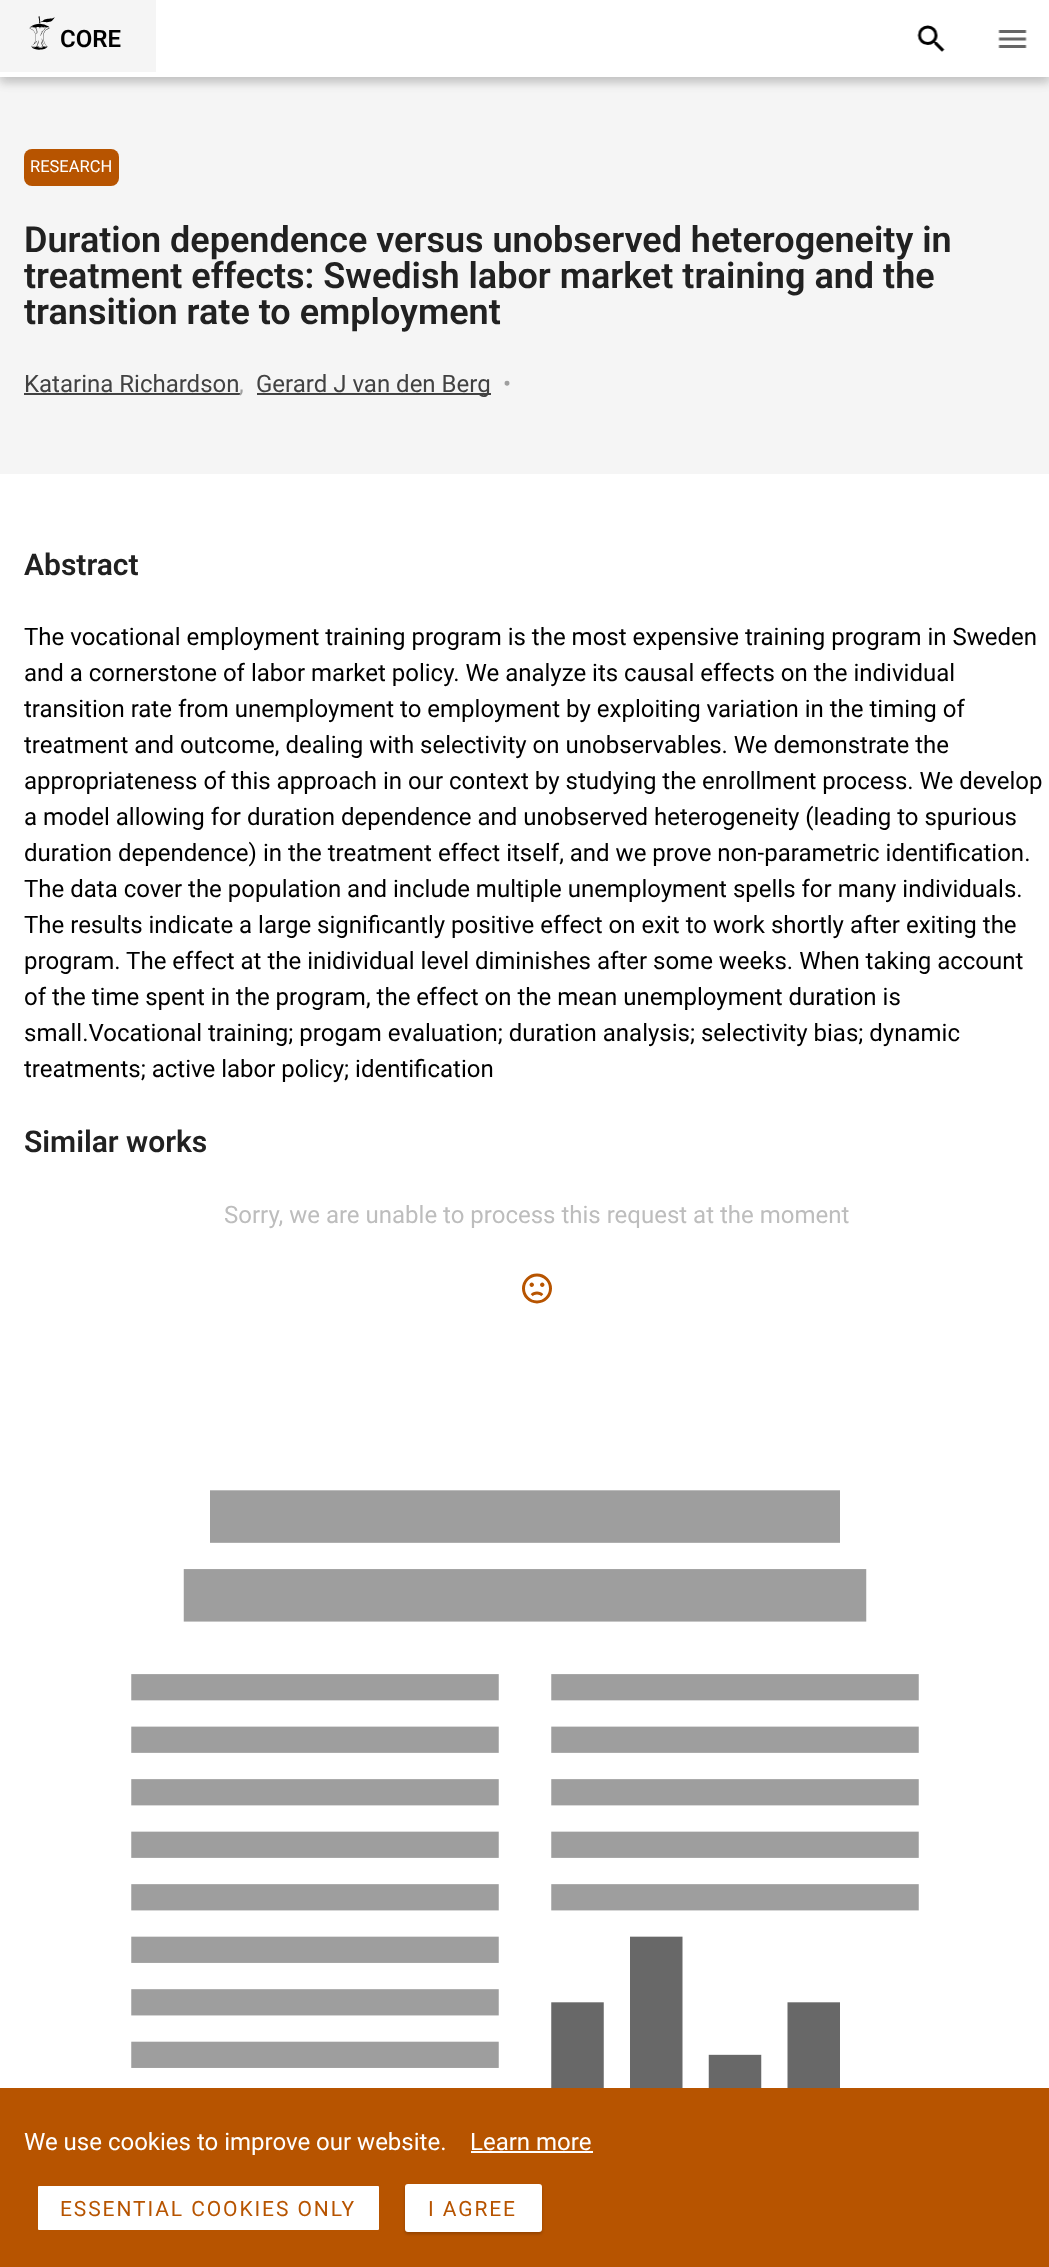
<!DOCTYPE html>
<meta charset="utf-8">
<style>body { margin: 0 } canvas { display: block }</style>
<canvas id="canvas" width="1049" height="2267"></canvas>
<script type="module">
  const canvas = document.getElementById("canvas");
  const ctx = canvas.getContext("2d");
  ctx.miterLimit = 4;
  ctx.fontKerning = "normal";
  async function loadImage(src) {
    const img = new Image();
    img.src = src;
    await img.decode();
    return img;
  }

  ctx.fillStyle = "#ffffff";
  ctx.fillRect(0, 0, 1049, 2267);
  ctx.fillStyle = "#f5f5f5";
  ctx.fillRect(0, 77, 1049, 397);
  ctx.fillStyle = "rgba(0, 0, 0, 0.14)";
  ctx.filter = "blur(4px)";
  ctx.beginPath();
  ctx.rect(0, 6, 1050, 77);
  ctx.fill();
  ctx.filter = "none";
  ctx.fillStyle = "rgba(0, 0, 0, 0.12)";
  ctx.filter = "blur(7.5px)";
  ctx.beginPath();
  ctx.rect(0, 2, 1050, 76);
  ctx.fill();
  ctx.filter = "none";
  ctx.fillStyle = "#ffffff";
  ctx.fillRect(0, 0, 1049, 77);
  ctx.fillStyle = "#f5f5f5";
  ctx.fillRect(0, 0, 156, 72);
  ctx.drawImage(await loadImage("img1.png"), 29, 16, 26, 34);
  ctx.font = "600 24px Roboto";
  ctx.fillStyle = "#000000";
  ctx.fillText("CORE", 60, 47);
  ctx.drawImage(await loadImage("img2.png"), 917, 25, 28, 27);
  ctx.drawImage(await loadImage("img3.png"), 998, 30, 29, 18);
  ctx.fillStyle = "#b75400";
  ctx.beginPath();
  ctx.roundRect(24, 149, 95, 37, 8);
  ctx.fill();
  ctx.font = "16.5px Roboto";
  ctx.fillStyle = "#ffffff";
  ctx.fillText("RESEARCH", 30, 172);
  ctx.font = "600 36px Roboto";
  ctx.fillStyle = "#212121";
  ctx.fillText("Duration dependence versus unobserved heterogeneity in", 24, 252);
  ctx.fillText("treatment effects: Swedish labor market training and the", 24, 288);
  ctx.fillText("transition rate to employment", 24, 324);
  ctx.font = "24px Roboto";
  ctx.fillStyle = "#424242";
  ctx.fillText("Katarina Richardson", 24, 392);
  ctx.fillRect(24, 393, 216, 2);
  ctx.fillStyle = "#9f9f9f";
  ctx.fillText(",", 239, 392);
  ctx.fillStyle = "#424242";
  ctx.fillRect(257, 393, 234, 2);
  ctx.fillText("Gerard J van den Berg", 256, 392);
  ctx.fillStyle = "#9f9f9f";
  ctx.fillText("•", 503, 392);
  ctx.font = "600 30px Roboto";
  ctx.fillStyle = "#212121";
  ctx.fillText("Abstract", 24, 575);
  ctx.font = "24px Roboto";
  ctx.fillStyle = "#000000";
  ctx.fillText("The vocational employment training program is the most expensive training program in Sweden", 24, 645);
  ctx.fillText("and a cornerstone of labor market policy. We analyze its causal effects on the individual", 24, 681);
  ctx.fillText("transition rate from unemployment to employment by exploiting variation in the timing of", 24, 717);
  ctx.fillText("treatment and outcome, dealing with selectivity on unobservables. We demonstrate the", 24, 753);
  ctx.fillText("appropriateness of this approach in our context by studying the enrollment process. We develop", 24, 789);
  ctx.fillText("a model allowing for duration dependence and unobserved heterogeneity (leading to spurious", 24, 825);
  ctx.fillText("duration dependence) in the treatment effect itself, and we prove non-parametric identification.", 24, 861);
  ctx.fillText("The data cover the population and include multiple unemployment spells for many individuals.", 24, 897);
  ctx.fillText("The results indicate a large significantly positive effect on exit to work shortly after exiting the", 24, 933);
  ctx.fillText("program. The effect at the inidividual level diminishes after some weeks. When taking account", 24, 969);
  ctx.fillText("of the time spent in the program, the effect on the mean unemployment duration is", 24, 1005);
  ctx.fillText("small.Vocational training; progam evaluation; duration analysis; selectivity bias; dynamic", 24, 1041);
  ctx.fillText("treatments; active labor policy; identification", 24, 1077);
  ctx.font = "600 30px Roboto";
  ctx.fillStyle = "#212121";
  ctx.fillText("Similar works", 24, 1152);
  ctx.font = "24px Roboto";
  ctx.fillStyle = "#bdbdbd";
  ctx.fillText("Sorry, we are unable to process this request at the moment", 224, 1223);
  ctx.drawImage(await loadImage("img4.png"), 522, 1273, 30, 31);
  ctx.drawImage(await loadImage("img5.png"), 131, 1490, 788, 598);
  ctx.fillStyle = "#b75400";
  ctx.fillRect(0, 2088, 1049, 179);
  ctx.fillStyle = "#ffffff";
  ctx.fillText("We use cookies to improve our website.", 24, 2150);
  ctx.fillText("Learn more", 470, 2150);
  ctx.fillRect(471, 2151, 122, 2);
  ctx.beginPath();
  ctx.roundRect(37, 2185, 343, 46, 2);
  ctx.fill();
  ctx.strokeStyle = "#b75400";
  ctx.lineWidth = 2;
  ctx.stroke();
  ctx.letterSpacing = "1.9px";
  ctx.font = "21px Roboto";
  ctx.fillStyle = "#b75400";
  ctx.fillText("ESSENTIAL COOKIES ONLY", 60, 2216);
  ctx.fillStyle = "rgba(0, 0, 0, 0.2)";
  ctx.filter = "blur(1.5px)";
  ctx.beginPath();
  ctx.roundRect(405, 2186, 137, 48, 3);
  ctx.fill();
  ctx.filter = "none";
  ctx.fillStyle = "#ffffff";
  ctx.beginPath();
  ctx.roundRect(405, 2184, 137, 48, 3);
  ctx.fill();
  ctx.fillStyle = "#b75400";
  ctx.fillText("I AGREE", 428, 2216);
</script>
